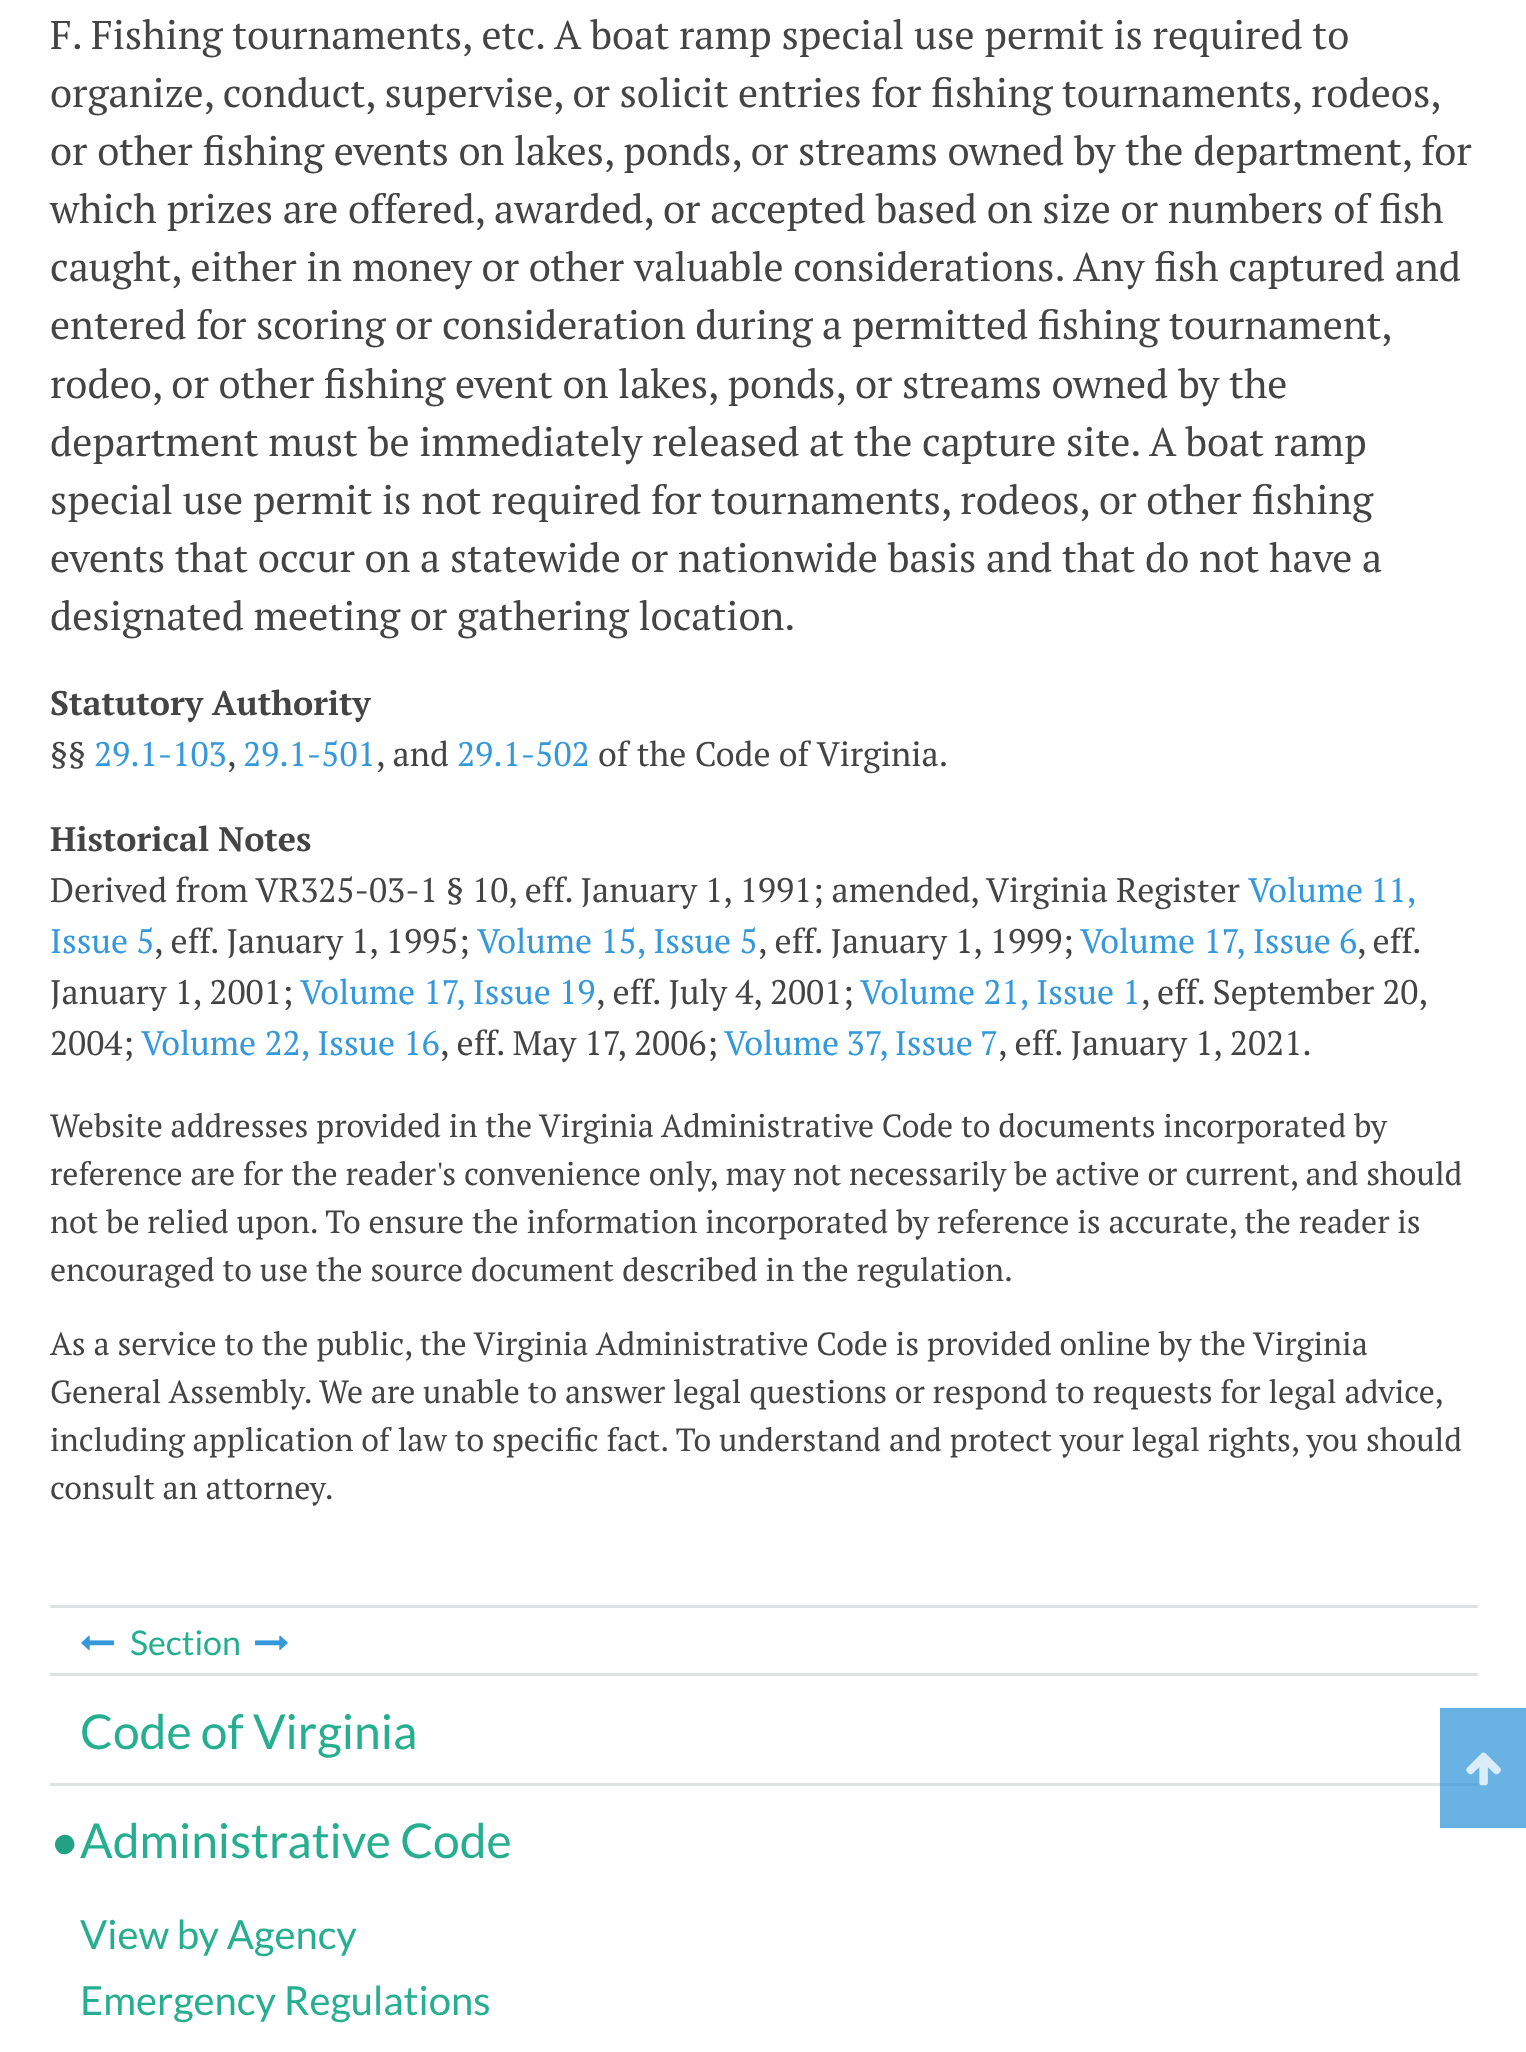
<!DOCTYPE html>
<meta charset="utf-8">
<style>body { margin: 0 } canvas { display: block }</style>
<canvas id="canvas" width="1526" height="2052"></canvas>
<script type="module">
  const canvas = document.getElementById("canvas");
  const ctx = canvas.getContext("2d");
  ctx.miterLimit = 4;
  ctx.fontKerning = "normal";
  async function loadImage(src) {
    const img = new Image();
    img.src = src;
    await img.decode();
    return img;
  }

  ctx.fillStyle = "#ffffff";
  ctx.fillRect(0, 0, 1526, 2052);
  ctx.fillStyle = "#68b2e4";
  ctx.fillRect(1440, 1708, 86, 120);
  ctx.font = "40px PT Serif";
  ctx.fillStyle = "#444444";
  ctx.fillText("F. Fishing tournaments, etc.", 50, 49);
  ctx.fillText("A boat ramp special use permit is required to", 554, 49);
  ctx.wordSpacing = "-0.25px";
  ctx.fillText("organize, conduct, supervise, or solicit entries for fishing tournaments, rodeos,", 50, 107);
  ctx.wordSpacing = "0px";
  ctx.fillText("or other fishing events on lakes, ponds, or streams owned by the department, for", 50, 165);
  ctx.fillText("which prizes are offered, awarded, or accepted based on size or numbers of fish", 50, 223);
  ctx.fillText("caught, either in money or other valuable considerations. Any fish captured and", 50, 281);
  ctx.wordSpacing = "-0.25px";
  ctx.fillText("entered for scoring or consideration during a permitted fishing tournament,", 50, 339);
  ctx.wordSpacing = "0px";
  ctx.fillText("rodeo, or other fishing event on lakes, ponds, or streams owned by the", 50, 398);
  ctx.fillText("department must be immediately released at the capture site. A boat ramp", 50, 456);
  ctx.fillText("special use permit is not required for tournaments, rodeos, or other fishing", 50, 514);
  ctx.fillText("events that occur on a statewide or nationwide basis and that do not have a", 50, 572);
  ctx.fillText("designated meeting or gathering location.", 50, 630);
  ctx.font = "bold 34px PT Serif";
  ctx.fillText("Statutory Authority", 50, 715);
  ctx.font = "34px PT Serif";
  ctx.fillText("§§", 50, 766);
  ctx.fillStyle = "#3498db";
  ctx.fillText("29.1-103", 94, 766);
  ctx.fillStyle = "#444444";
  ctx.fillText(",", 227, 766);
  ctx.fillStyle = "#3498db";
  ctx.fillText("29.1-501", 243, 766);
  ctx.fillStyle = "#444444";
  ctx.fillText(", and", 376, 766);
  ctx.fillStyle = "#3498db";
  ctx.fillText("29.1-502", 457, 766);
  ctx.fillStyle = "#444444";
  ctx.fillText("of the Code of Virginia.", 598, 766);
  ctx.font = "bold 34px PT Serif";
  ctx.fillText("Historical Notes", 50, 851);
  ctx.wordSpacing = "-0.1px";
  ctx.font = "34px PT Serif";
  ctx.fillText("Derived from VR325-03-1 § 10, eff. January 1, 1991; amended, Virginia Register", 50, 902);
  ctx.wordSpacing = "-1px";
  ctx.fillStyle = "#3498db";
  ctx.fillText("Volume 11,", 1248, 902);
  ctx.wordSpacing = "0px";
  ctx.fillText("Issue 5", 50, 953);
  ctx.fillStyle = "#444444";
  ctx.fillText(", eff. January 1, 1995;", 154, 953);
  ctx.fillStyle = "#3498db";
  ctx.fillText("Volume 15, Issue 5", 477, 953);
  ctx.fillStyle = "#444444";
  ctx.fillText(", eff. January 1, 1999;", 758, 953);
  ctx.fillStyle = "#3498db";
  ctx.fillText("Volume 17, Issue 6", 1080, 953);
  ctx.wordSpacing = "-1px";
  ctx.fillStyle = "#444444";
  ctx.fillText(", eff.", 1357, 953);
  ctx.wordSpacing = "0px";
  ctx.fillText("January 1, 2001;", 50, 1004);
  ctx.fillStyle = "#3498db";
  ctx.fillText("Volume 17, Issue 19", 300, 1004);
  ctx.fillStyle = "#444444";
  ctx.fillText(", eff. July 4, 2001;", 596, 1004);
  ctx.fillStyle = "#3498db";
  ctx.fillText("Volume 21, Issue 1", 860, 1004);
  ctx.wordSpacing = "-0.5px";
  ctx.fillStyle = "#444444";
  ctx.fillText(", eff. September 20,", 1141, 1004);
  ctx.wordSpacing = "0px";
  ctx.fillText("2004;", 50, 1055);
  ctx.fillStyle = "#3498db";
  ctx.fillText("Volume 22, Issue 16", 141, 1055);
  ctx.fillStyle = "#444444";
  ctx.fillText(", eff. May 17, 2006;", 440, 1055);
  ctx.wordSpacing = "-1px";
  ctx.fillStyle = "#3498db";
  ctx.fillText("Volume 37, Issue 7", 724, 1055);
  ctx.wordSpacing = "0px";
  ctx.fillStyle = "#444444";
  ctx.fillText(", eff. January 1, 2021.", 998, 1055);
  ctx.font = "32px PT Serif";
  ctx.fillText("Website addresses provided in the Virginia Administrative Code to documents incorporated by", 50, 1137);
  ctx.fillText("reference are for the reader's convenience only, may not necessarily be active or current, and should", 50, 1185);
  ctx.fillText("not be relied upon. To ensure the information incorporated by reference is accurate, the reader is", 50, 1233);
  ctx.fillText("encouraged to use the source document described in the regulation.", 50, 1281);
  ctx.fillText("As a service to the public, the Virginia Administrative Code is provided online by the Virginia", 50, 1355);
  ctx.fillText("General Assembly. We are unable to answer legal questions or respond to requests for legal advice,", 50, 1403);
  ctx.fillText("including application of law to specific fact. To understand and protect your legal rights, you should", 50, 1451);
  ctx.fillText("consult an attorney.", 50, 1499);
  ctx.fillStyle = "#dee2e3";
  ctx.fillRect(50, 1605, 1428, 3);
  ctx.drawImage(await loadImage("img1.png"), 81, 1635, 33, 16);
  ctx.font = "34px Lato";
  ctx.fillStyle = "#26ae90";
  ctx.fillText("Section", 130, 1655);
  ctx.drawImage(await loadImage("img2.png"), 255, 1635, 33, 16);
  ctx.fillStyle = "#5fabdd";
  ctx.fillRect(1440, 1783, 38, 3);
  ctx.drawImage(await loadImage("img3.png"), 1466, 1752, 35, 34);
  ctx.fillStyle = "#dee2e3";
  ctx.fillRect(50, 1673, 1428, 3);
  ctx.font = "48px Lato";
  ctx.fillStyle = "#26ae90";
  ctx.fillText("Code of Virginia", 80, 1749);
  ctx.fillStyle = "#dee2e3";
  ctx.fillRect(50, 1783, 1390, 3);
  ctx.fillStyle = "#23a185";
  ctx.beginPath();
  ctx.moveTo(73, 1839.5);
  ctx.bezierCurveTo(79.5, 1850.5, 62.5, 1860.5, 56.5, 1849.5);
  ctx.bezierCurveTo(50, 1838.5, 66.5, 1828.5, 73, 1839.5);
  ctx.closePath();
  ctx.fill();
  ctx.fillStyle = "#26ae90";
  ctx.fillText("Administrative Code", 80, 1858);
  ctx.font = "40px Lato";
  ctx.fillText("View by Agency", 80, 1949);
  ctx.fillText("Emergency Regulations", 80, 2015);
</script>
